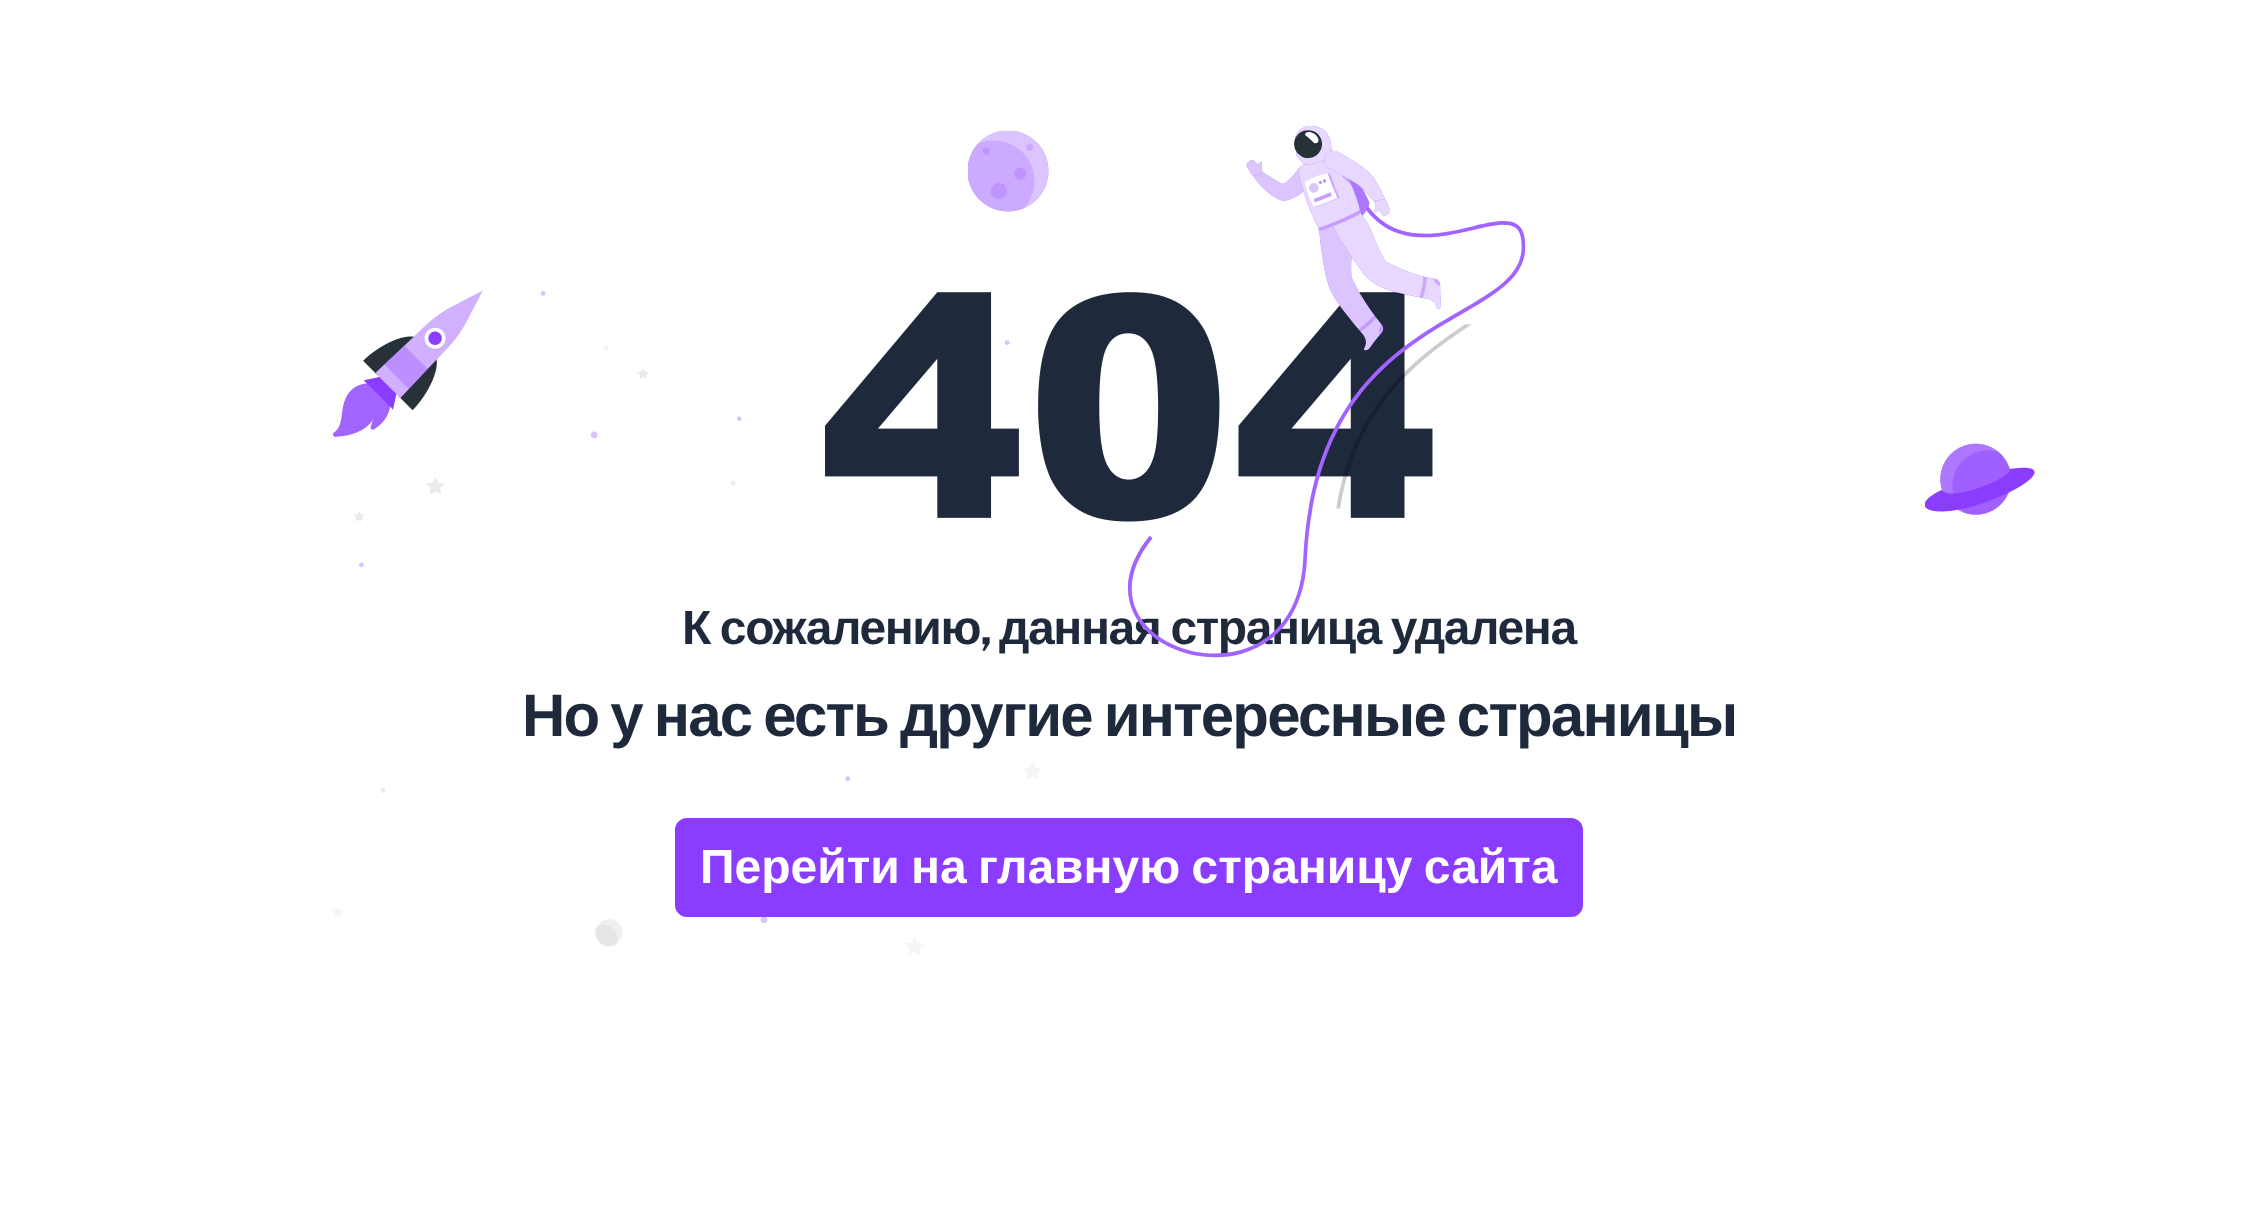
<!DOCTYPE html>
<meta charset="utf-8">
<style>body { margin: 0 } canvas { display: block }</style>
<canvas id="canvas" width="2257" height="1207"></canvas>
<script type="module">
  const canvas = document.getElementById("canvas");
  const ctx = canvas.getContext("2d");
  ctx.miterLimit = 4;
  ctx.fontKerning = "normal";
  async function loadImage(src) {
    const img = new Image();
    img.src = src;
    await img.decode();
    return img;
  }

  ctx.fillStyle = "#ffffff";
  ctx.fillRect(0, 0, 2257, 1207);
  ctx.drawImage(await loadImage("img1.png"), 968, 131, 81, 81);
  ctx.drawImage(await loadImage("img5.png"), 825, 292, 608, 230);
  ctx.letterSpacing = "-1.4px";
  ctx.wordSpacing = "-2px";
  ctx.font = "bold 48px Liberation Sans";
  ctx.fillStyle = "#1e293b";
  ctx.fillText("данная страница удалена", 999, 644);
  ctx.drawImage(await loadImage("img2.png"), 1128, 126, 398, 532);
  ctx.fillText("К сожалению", 682, 644);
  ctx.wordSpacing = "0px";
  ctx.font = "bold 48px Public Sans";
  ctx.fillText(",", 980, 644);
  ctx.letterSpacing = "-1.8px";
  ctx.wordSpacing = "-3px";
  ctx.font = "bold 60px Liberation Sans";
  ctx.fillText("Но у нас есть другие интересные страницы", 522, 736);
  ctx.fillStyle = "#8b3dff";
  ctx.beginPath();
  ctx.roundRect(676, 819, 906, 97, 11);
  ctx.fill();
  ctx.strokeStyle = "#8b3dff";
  ctx.lineWidth = 2;
  ctx.stroke();
  ctx.letterSpacing = "0px";
  ctx.wordSpacing = "-2px";
  ctx.font = "bold 48px Liberation Sans";
  ctx.fillStyle = "#ffffff";
  ctx.fillText("Перейти на главную страницу сайта", 700, 883);
  ctx.drawImage(await loadImage("img3.png"), 333, 291, 709, 664);
  ctx.drawImage(await loadImage("img4.png"), 333, 291, 150, 146);
  ctx.drawImage(await loadImage("img6.png"), 1925, 443, 110, 72);
</script>
